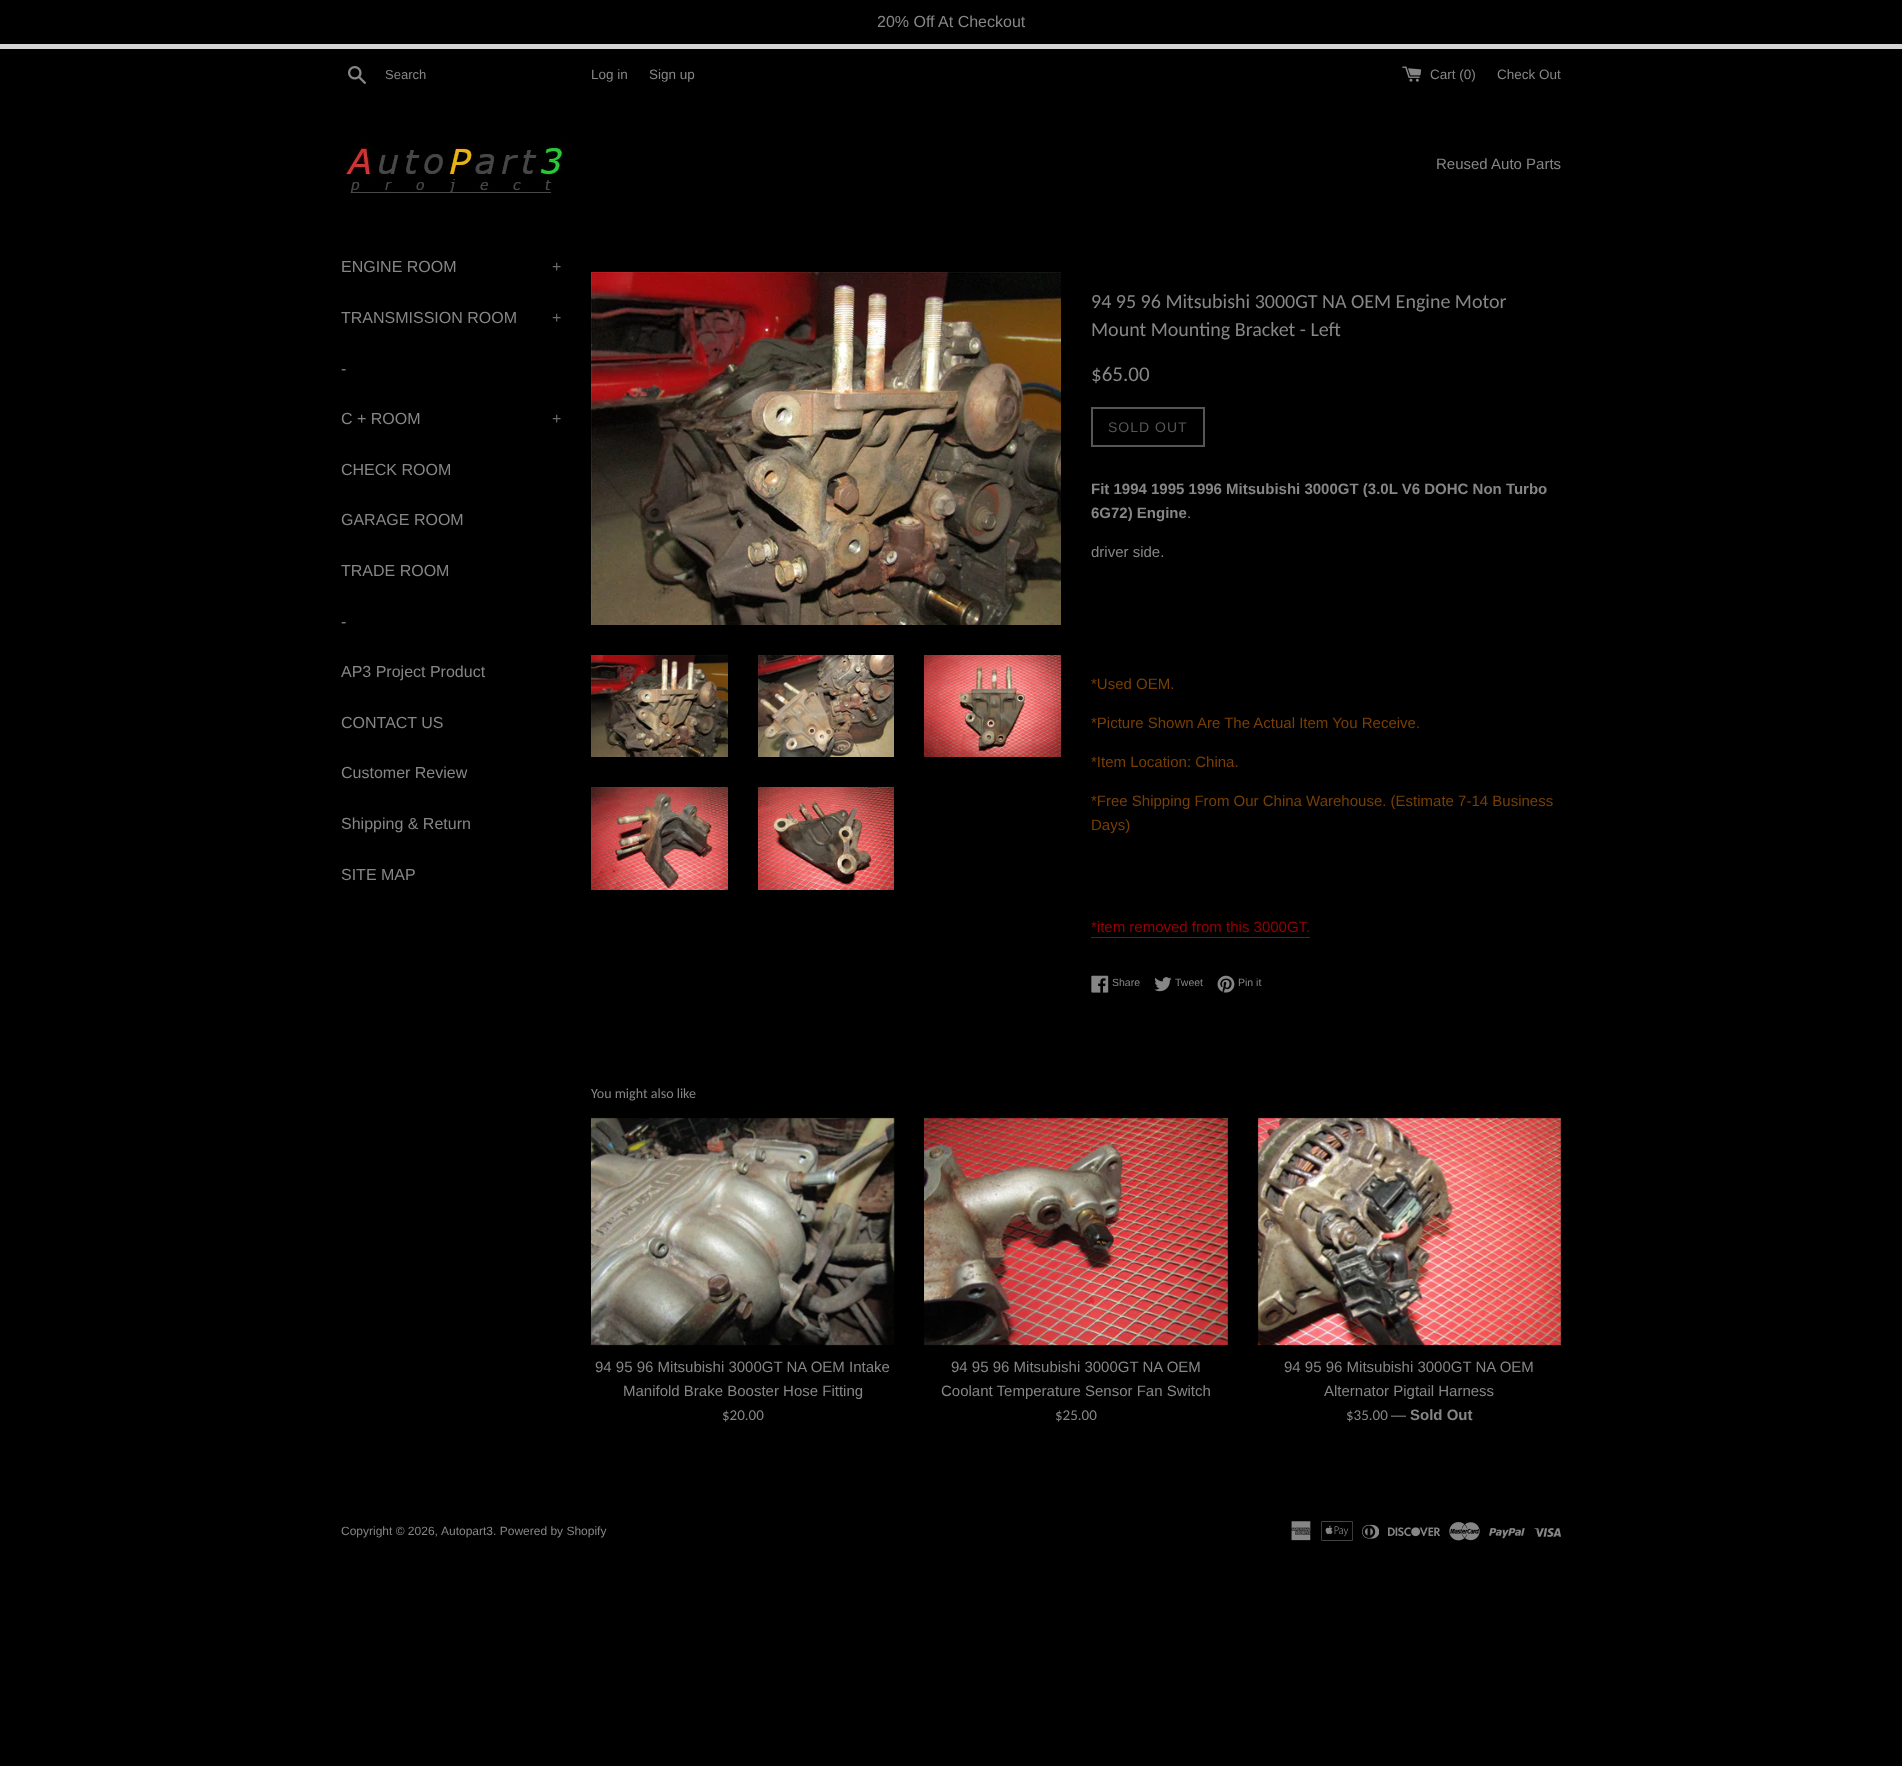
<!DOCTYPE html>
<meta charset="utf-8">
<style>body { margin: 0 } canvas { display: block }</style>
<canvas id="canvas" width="1902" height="1766"></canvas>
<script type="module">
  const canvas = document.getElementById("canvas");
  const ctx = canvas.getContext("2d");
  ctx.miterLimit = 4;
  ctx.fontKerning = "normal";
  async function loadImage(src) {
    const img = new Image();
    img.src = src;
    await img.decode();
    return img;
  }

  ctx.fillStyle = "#000000";
  ctx.fillRect(0, 0, 1902, 1766);
  ctx.font = "16px Liberation Sans";
  ctx.fillStyle = "#868686";
  ctx.fillText("20% Off At Checkout", 877, 27);
  ctx.fillStyle = "#d4d4d4";
  ctx.fillRect(0, 44, 1902, 5);
  ctx.drawImage(await loadImage("img1.png"), 348, 66, 18, 18);
  ctx.font = "13px Liberation Sans";
  ctx.fillStyle = "#868686";
  ctx.fillText("Search", 385, 79);
  ctx.font = "13.5px Liberation Sans";
  ctx.fillText("Log in", 591, 79);
  ctx.fillText("Sign up", 649, 79);
  ctx.drawImage(await loadImage("img2.png"), 1402, 66, 20, 16);
  ctx.fillText("Cart (0)", 1430, 79);
  ctx.fillText("Check Out", 1497, 79);
  ctx.drawImage(await loadImage("img3.png"), 341, 142, 223, 51);
  ctx.font = "15px Liberation Sans";
  ctx.fillText("Reused Auto Parts", 1436, 169);
  ctx.font = "16px Liberation Sans";
  ctx.fillText("ENGINE ROOM", 341, 272);
  ctx.fillStyle = "#6b6b6b";
  ctx.fillText("+", 552, 272);
  ctx.fillStyle = "#868686";
  ctx.fillText("TRANSMISSION ROOM", 341, 323);
  ctx.fillStyle = "#6b6b6b";
  ctx.fillText("+", 552, 323);
  ctx.fillStyle = "#868686";
  ctx.fillText("-", 341, 374);
  ctx.fillText("C + ROOM", 341, 424);
  ctx.fillStyle = "#6b6b6b";
  ctx.fillText("+", 552, 424);
  ctx.fillStyle = "#868686";
  ctx.fillText("CHECK ROOM", 341, 475);
  ctx.fillText("GARAGE ROOM", 341, 525);
  ctx.fillText("TRADE ROOM", 341, 576);
  ctx.fillText("-", 341, 627);
  ctx.fillText("AP3 Project Product", 341, 677);
  ctx.fillText("CONTACT US", 341, 728);
  ctx.fillText("Customer Review", 341, 778);
  ctx.fillText("Shipping & Return", 341, 829);
  ctx.fillText("SITE MAP", 341, 880);
  ctx.drawImage(await loadImage("img4.png"), 591, 272, 470, 353);
  ctx.drawImage(await loadImage("img5.png"), 591, 655, 137, 102);
  ctx.drawImage(await loadImage("img6.png"), 758, 655, 136, 102);
  ctx.drawImage(await loadImage("img7.png"), 924, 655, 137, 102);
  ctx.drawImage(await loadImage("img8.png"), 591, 787, 137, 103);
  ctx.drawImage(await loadImage("img9.png"), 758, 787, 136, 103);
  ctx.font = "20px Carlito";
  ctx.fillText("94 95 96 Mitsubishi 3000GT NA OEM Engine Motor", 1091, 308);
  ctx.fillText("Mount Mounting Bracket - Left", 1091, 336);
  ctx.font = "21px Carlito";
  ctx.fillText("$65.00", 1091, 381);
  ctx.strokeStyle = "#565656";
  ctx.lineWidth = 2;
  ctx.strokeRect(1092, 408, 112, 38);
  ctx.letterSpacing = "1px";
  ctx.font = "14px Liberation Sans";
  ctx.fillStyle = "#565656";
  ctx.fillText("SOLD OUT", 1108, 432);
  ctx.letterSpacing = "0px";
  ctx.font = "bold 15px Liberation Sans";
  ctx.fillStyle = "#868686";
  ctx.fillText("Fit 1994 1995 1996 Mitsubishi 3000GT (3.0L V6 DOHC Non Turbo", 1091, 494);
  ctx.fillText("6G72) Engine", 1091, 518);
  ctx.font = "15px Liberation Sans";
  ctx.fillText(".", 1187, 518);
  ctx.fillText("driver side.", 1091, 557);
  ctx.fillStyle = "#783f04";
  ctx.fillText("*Used OEM.", 1091, 689);
  ctx.fillText("*Picture Shown Are The Actual Item You Receive.", 1091, 728);
  ctx.fillText("*Item Location: China.", 1091, 767);
  ctx.fillText("*Free Shipping From Our China Warehouse. (Estimate 7-14 Business", 1091, 806);
  ctx.fillText("Days)", 1091, 830);
  ctx.fillStyle = "#990000";
  ctx.fillText("*item removed from this 3000GT.", 1091, 932);
  ctx.fillRect(1091, 937, 219, 1);
  ctx.drawImage(await loadImage("img10.png"), 1091, 975, 18, 18);
  ctx.font = "10.5px Liberation Sans";
  ctx.fillStyle = "#868686";
  ctx.fillText("Share", 1112, 986);
  ctx.drawImage(await loadImage("img11.png"), 1154, 977, 18, 15);
  ctx.fillText("Tweet", 1175, 986);
  ctx.drawImage(await loadImage("img12.png"), 1217, 975, 18, 18);
  ctx.fillText("Pin it", 1238, 986);
  ctx.font = "14px Carlito";
  ctx.fillText("You might also like", 591, 1098);
  ctx.drawImage(await loadImage("img13.png"), 591, 1117, 304, 229);
  ctx.font = "15px Liberation Sans";
  ctx.fillText("94 95 96 Mitsubishi 3000GT NA OEM Intake", 595, 1372);
  ctx.fillText("Manifold Brake Booster Hose Fitting", 623, 1396);
  ctx.font = "15px Carlito";
  ctx.fillText("$20.00", 722, 1420);
  ctx.drawImage(await loadImage("img14.png"), 924, 1117, 304, 229);
  ctx.font = "15px Liberation Sans";
  ctx.fillText("94 95 96 Mitsubishi 3000GT NA OEM", 951, 1372);
  ctx.fillText("Coolant Temperature Sensor Fan Switch", 941, 1396);
  ctx.font = "15px Carlito";
  ctx.fillText("$25.00", 1055, 1420);
  ctx.drawImage(await loadImage("img15.png"), 1257, 1117, 304, 229);
  ctx.font = "15px Liberation Sans";
  ctx.fillText("94 95 96 Mitsubishi 3000GT NA OEM", 1284, 1372);
  ctx.fillText("Alternator Pigtail Harness", 1324, 1396);
  ctx.font = "15px Carlito";
  ctx.fillText("$35.00", 1346, 1420);
  ctx.font = "15px Liberation Sans";
  ctx.fillText("—", 1391, 1420);
  ctx.font = "bold 15px Liberation Sans";
  ctx.fillText("Sold Out", 1410, 1420);
  ctx.font = "12px Liberation Sans";
  ctx.fillText("Copyright © 2026,", 341, 1535);
  ctx.fillText("Autopart3. Powered by Shopify", 441, 1535);
  ctx.drawImage(await loadImage("img16.png"), 1291, 1521, 20, 20);
  ctx.drawImage(await loadImage("img17.png"), 1321, 1521, 32, 20);
  ctx.drawImage(await loadImage("img18.png"), 1362, 1524, 17, 15);
  ctx.drawImage(await loadImage("img19.png"), 1388, 1527, 52, 10);
  ctx.drawImage(await loadImage("img20.png"), 1449, 1522, 31, 19);
  ctx.drawImage(await loadImage("img21.png"), 1489, 1528, 36, 11);
  ctx.drawImage(await loadImage("img22.png"), 1534, 1528, 27, 9);
</script>
